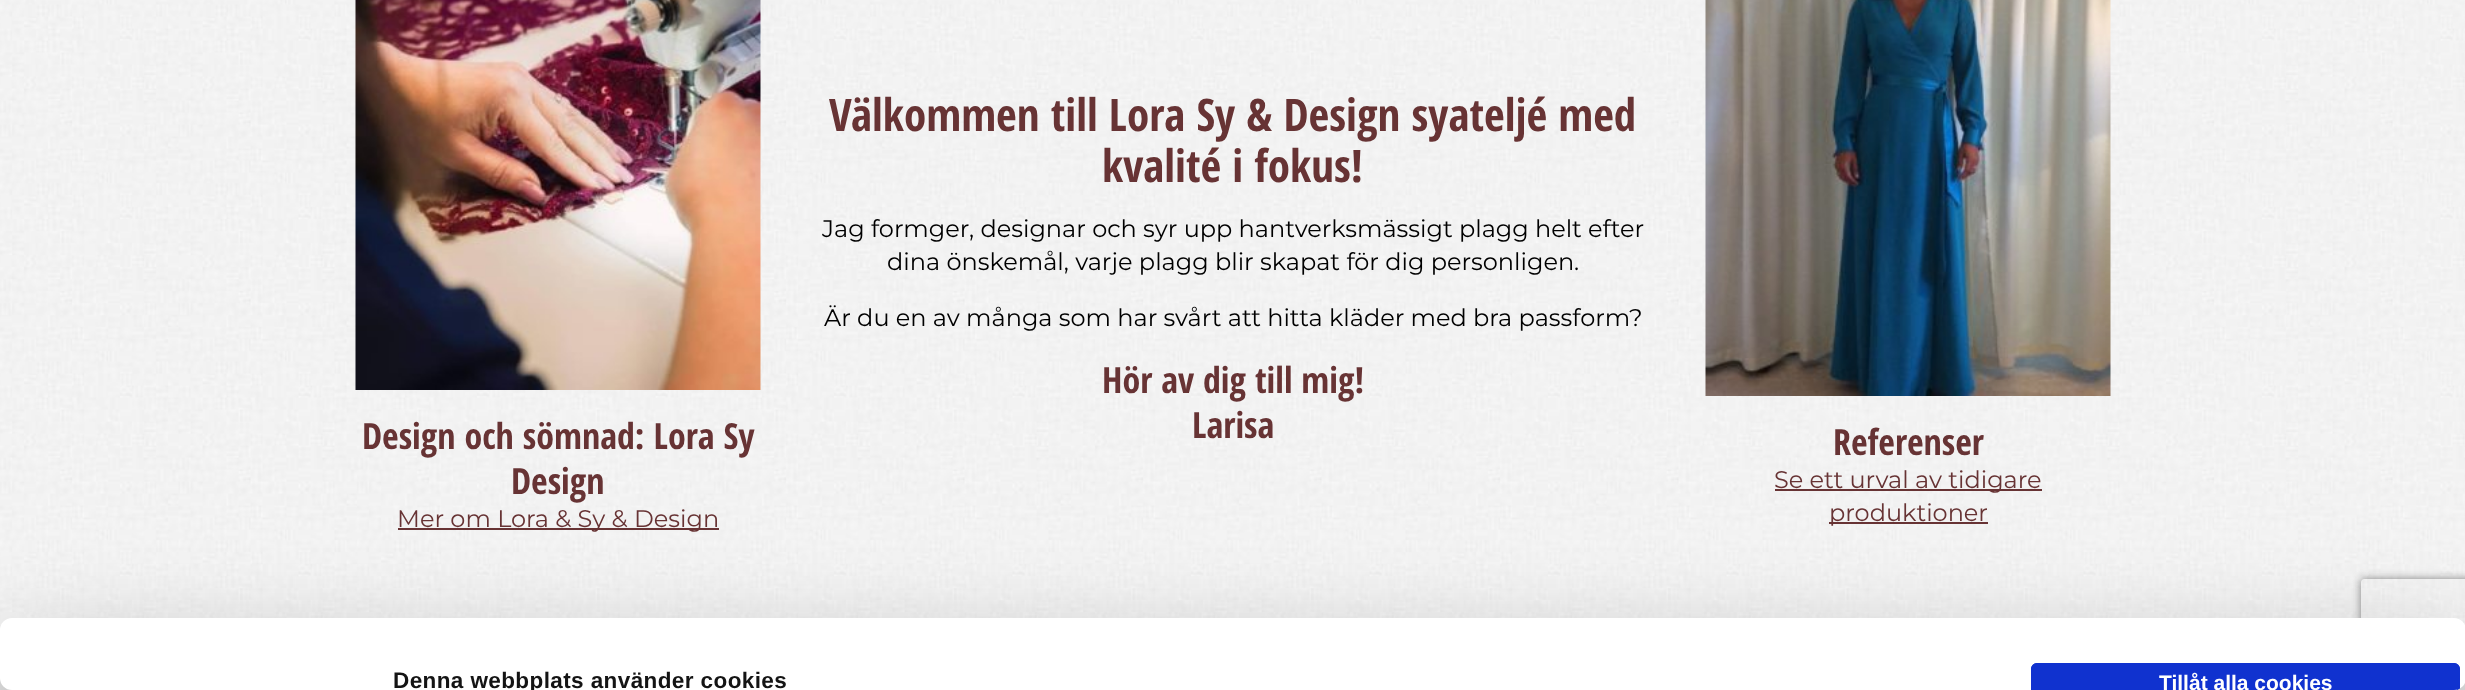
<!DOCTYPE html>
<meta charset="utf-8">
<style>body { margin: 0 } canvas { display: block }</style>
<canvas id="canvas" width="2465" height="690"></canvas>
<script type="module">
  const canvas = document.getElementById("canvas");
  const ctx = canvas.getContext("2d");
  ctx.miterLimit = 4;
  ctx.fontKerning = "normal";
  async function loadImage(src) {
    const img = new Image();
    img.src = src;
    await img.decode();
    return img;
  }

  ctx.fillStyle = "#ffffff";
  ctx.fillRect(0, 0, 2465, 690);
  ctx.drawImage(await loadImage("img1.png"), 0, 0, 2465, 630);
  ctx.font = "bold 45px Open Sans Condensed";
  ctx.fillStyle = "#673334";
  ctx.fillText("Välkommen till Lora Sy & Design syateljé med", 829, 131);
  ctx.fillText("kvalité i fokus!", 1102, 182);
  ctx.font = "100 24px Montserrat";
  ctx.fillStyle = "#000000";
  ctx.fillText("Jag formger, designar och syr upp hantverksmässigt plagg helt efter", 822, 237);
  ctx.fillText("dina önskemål, varje plagg blir skapat för dig personligen.", 887, 270);
  ctx.fillText("Är du en av många som har svårt att hitta kläder med bra passform?", 824, 326);
  ctx.font = "bold 36px Open Sans Condensed";
  ctx.fillStyle = "#673334";
  ctx.fillText("Hör av dig till mig!", 1102, 393);
  ctx.fillText("Larisa", 1192, 438);
  ctx.drawImage(await loadImage("img2.png"), 355, 0, 406, 390);
  ctx.fillText("Design och sömnad: Lora Sy", 362, 449);
  ctx.fillText("Design", 511, 494);
  ctx.fillRect(398, 528, 321, 2);
  ctx.font = "100 24px Montserrat";
  ctx.fillText("Mer om Lora & Sy & Design", 397, 527);
  ctx.drawImage(await loadImage("img3.png"), 1705, 0, 406, 396);
  ctx.font = "bold 36px Open Sans Condensed";
  ctx.fillText("Referenser", 1833, 455);
  ctx.fillRect(1775, 489, 267, 2);
  ctx.font = "100 24px Montserrat";
  ctx.fillText("Se ett urval av tidigare", 1774, 488);
  ctx.fillRect(1829, 522, 159, 2);
  ctx.fillText("produktioner", 1829, 521);
  ctx.fillStyle = "#e2e2e2";
  ctx.fillRect(0, 678, 2465, 12);
  ctx.fillStyle = "rgba(0, 0, 0, 0.3)";
  ctx.filter = "blur(52.5px)";
  ctx.beginPath();
  ctx.roundRect(0, 663, 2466, 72, 12);
  ctx.fill();
  ctx.filter = "none";
  ctx.save();
  ctx.beginPath();
  ctx.moveTo(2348, 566);
  ctx.lineTo(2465, 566);
  ctx.lineTo(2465, 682);
  ctx.lineTo(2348, 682);
  ctx.closePath();
  ctx.moveTo(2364, 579);
  ctx.lineTo(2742, 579);
  ctx.bezierCurveTo(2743.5, 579, 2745, 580.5, 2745, 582);
  ctx.lineTo(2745, 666);
  ctx.bezierCurveTo(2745, 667.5, 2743.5, 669, 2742, 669);
  ctx.lineTo(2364, 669);
  ctx.bezierCurveTo(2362.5, 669, 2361, 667.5, 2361, 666);
  ctx.lineTo(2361, 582);
  ctx.bezierCurveTo(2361, 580.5, 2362.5, 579, 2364, 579);
  ctx.closePath();
  ctx.clip("evenodd");
  ctx.fillStyle = "#808080";
  ctx.filter = "blur(4px)";
  ctx.beginPath();
  ctx.roundRect(2361, 579, 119, 90, 3);
  ctx.fill();
  ctx.filter = "none";
  ctx.restore();
  ctx.fillStyle = "#ffffff";
  ctx.beginPath();
  ctx.roundRect(0, 618, 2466, 72, 12);
  ctx.fill();
  ctx.letterSpacing = "0.4px";
  ctx.font = "bold 22.5px Liberation Sans";
  ctx.fillStyle = "#141414";
  ctx.fillText("Denna webbplats använder cookies", 393, 688);
  ctx.save();
  ctx.beginPath();
  ctx.roundRect(0, 618, 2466, 72, 12);
  ctx.clip();
  ctx.fillStyle = "#1032cf";
  ctx.beginPath();
  ctx.roundRect(2031, 663, 429, 27, [6, 6, 0, 0]);
  ctx.fill();
  ctx.restore();
  ctx.fillStyle = "#1032cf";
  ctx.beginPath();
  ctx.moveTo(2037, 663);
  ctx.bezierCurveTo(2034, 663, 2031, 666, 2031, 669);
  ctx.lineTo(2031, 690);
  ctx.lineTo(2034, 690);
  ctx.lineTo(2034, 669);
  ctx.bezierCurveTo(2034, 667, 2035, 666, 2037, 666);
  ctx.lineTo(2454, 666);
  ctx.bezierCurveTo(2456, 666, 2457, 667, 2457, 669);
  ctx.lineTo(2457, 690);
  ctx.lineTo(2460, 688);
  ctx.lineTo(2460, 669);
  ctx.bezierCurveTo(2460, 666, 2457, 663, 2454, 663);
  ctx.closePath();
  ctx.fill();
  ctx.letterSpacing = "0px";
  ctx.font = "bold 21px Liberation Sans";
  ctx.fillStyle = "#ffffff";
  ctx.fillText("Tillåt alla cookies", 2159, 690);
</script>
